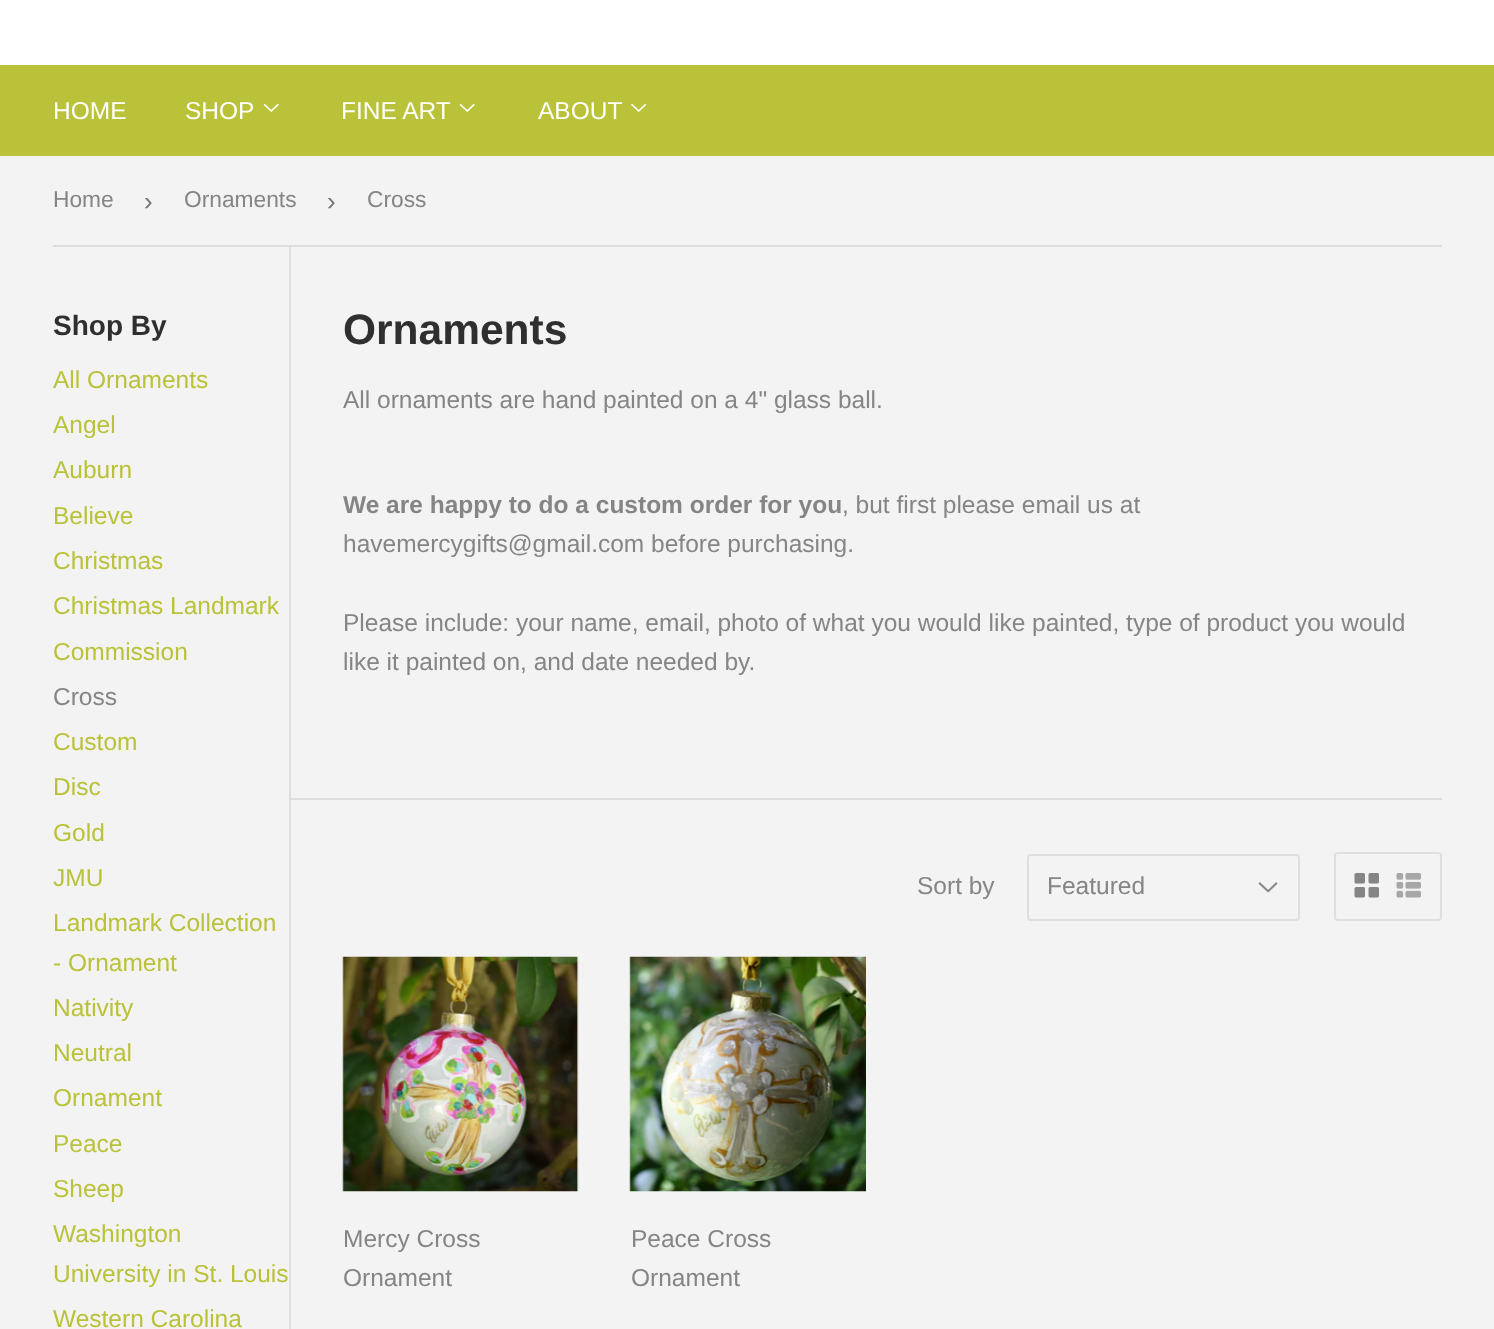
<!DOCTYPE html>
<meta charset="utf-8">
<style>body { margin: 0 } canvas { display: block }</style>
<canvas id="canvas" width="1494" height="1329"></canvas>
<script type="module">
  const canvas = document.getElementById("canvas");
  const ctx = canvas.getContext("2d");
  ctx.miterLimit = 4;
  ctx.fontKerning = "normal";
  async function loadImage(src) {
    const img = new Image();
    img.src = src;
    await img.decode();
    return img;
  }

  ctx.fillStyle = "#f3f3f3";
  ctx.fillRect(0, 0, 1494, 1329);
  ctx.fillStyle = "#ffffff";
  ctx.fillRect(0, 0, 1494, 65);
  ctx.fillStyle = "#b9c239";
  ctx.fillRect(0, 65, 1494, 91);
  ctx.font = "24.5px Liberation Sans";
  ctx.fillStyle = "#ffffff";
  ctx.fillText("HOME", 53, 119);
  ctx.fillText("SHOP", 185, 119);
  ctx.drawImage(await loadImage("img1.png"), 263, 103, 16, 9);
  ctx.fillText("FINE ART", 341, 119);
  ctx.drawImage(await loadImage("img1.png"), 459, 103, 16, 9);
  ctx.fillText("ABOUT", 538, 119);
  ctx.drawImage(await loadImage("img2.png"), 631, 103, 15, 9);
  ctx.fillStyle = "#dedede";
  ctx.fillRect(53, 245, 1389, 2);
  ctx.font = "22.75px Liberation Sans";
  ctx.fillStyle = "#858585";
  ctx.fillText("Home", 53, 207);
  ctx.font = "26px Liberation Sans";
  ctx.fillStyle = "#767676";
  ctx.fillText("›", 144, 210);
  ctx.font = "22.75px Liberation Sans";
  ctx.fillStyle = "#858585";
  ctx.fillText("Ornaments", 184, 207);
  ctx.font = "26px Liberation Sans";
  ctx.fillStyle = "#767676";
  ctx.fillText("›", 327, 210);
  ctx.save();
  ctx.beginPath();
  ctx.rect(368, 156, 70, 89);
  ctx.clip();
  ctx.font = "22.75px Liberation Sans";
  ctx.fillStyle = "#858585";
  ctx.fillText("Cross", 367, 207);
  ctx.restore();
  ctx.font = "bold 28px Liberation Sans";
  ctx.fillStyle = "#2f2f2f";
  ctx.fillText("Shop By", 53, 335);
  ctx.font = "24.5px Liberation Sans";
  ctx.fillStyle = "#b9c239";
  ctx.fillText("All Ornaments", 53, 388);
  ctx.fillText("Angel", 53, 433);
  ctx.fillText("Auburn", 53, 478);
  ctx.fillText("Believe", 53, 524);
  ctx.fillText("Christmas", 53, 569);
  ctx.fillText("Christmas Landmark", 53, 614);
  ctx.fillText("Commission", 53, 660);
  ctx.fillStyle = "#858585";
  ctx.fillText("Cross", 53, 705);
  ctx.fillStyle = "#b9c239";
  ctx.fillText("Custom", 53, 750);
  ctx.fillText("Disc", 53, 795);
  ctx.fillText("Gold", 53, 841);
  ctx.fillText("JMU", 53, 886);
  ctx.fillText("Landmark Collection", 53, 931);
  ctx.fillText("- Ornament", 53, 971);
  ctx.fillText("Nativity", 53, 1016);
  ctx.fillText("Neutral", 53, 1061);
  ctx.fillText("Ornament", 53, 1106);
  ctx.fillText("Peace", 53, 1152);
  ctx.fillText("Sheep", 53, 1197);
  ctx.fillText("Washington", 53, 1242);
  ctx.fillText("University in St. Louis", 53, 1282);
  ctx.fillText("Western Carolina", 53, 1327);
  ctx.fillStyle = "#dedede";
  ctx.fillRect(289, 247, 2, 1082);
  ctx.font = "bold 42.5px Liberation Sans";
  ctx.fillStyle = "#2f2f2f";
  ctx.fillText("Ornaments", 343, 344);
  ctx.font = "24.5px Liberation Sans";
  ctx.fillStyle = "#858585";
  ctx.fillText("All ornaments are hand painted on a 4\" glass ball.", 343, 408);
  ctx.font = "bold 24.5px Liberation Sans";
  ctx.fillText("We are happy to do a custom order for you", 343, 513);
  ctx.font = "24.5px Liberation Sans";
  ctx.fillText(", but first please email us at", 842, 513);
  ctx.fillText("havemercygifts@gmail.com before purchasing.", 343, 552);
  ctx.fillText("Please include: your name, email, photo of what you would like painted, type of product you would", 343, 631);
  ctx.fillText("like it painted on, and date needed by.", 343, 670);
  ctx.fillStyle = "#dedede";
  ctx.fillRect(291, 798, 1151, 2);
  ctx.fillStyle = "#858585";
  ctx.fillText("Sort by", 917, 894);
  ctx.drawImage(await loadImage("img3.png"), 1258, 882, 20, 11);
  ctx.beginPath();
  ctx.roundRect(1028, 855, 271, 65, 3);
  ctx.strokeStyle = "#dedede";
  ctx.lineWidth = 2;
  ctx.stroke();
  ctx.fillText("Featured", 1047, 894);
  ctx.beginPath();
  ctx.roundRect(1335, 853, 106, 67, 3);
  ctx.stroke();
  ctx.drawImage(await loadImage("img4.png"), 1354, 873, 25, 25);
  ctx.drawImage(await loadImage("img5.png"), 1396, 873, 25, 25);
  ctx.drawImage(await loadImage("img6.png"), 342, 956, 237, 236);
  ctx.fillText("Mercy Cross", 343, 1247);
  ctx.fillText("Ornament", 343, 1286);
  ctx.drawImage(await loadImage("img7.png"), 629, 956, 237, 236);
  ctx.fillText("Peace Cross", 631, 1247);
  ctx.fillText("Ornament", 631, 1286);
</script>
